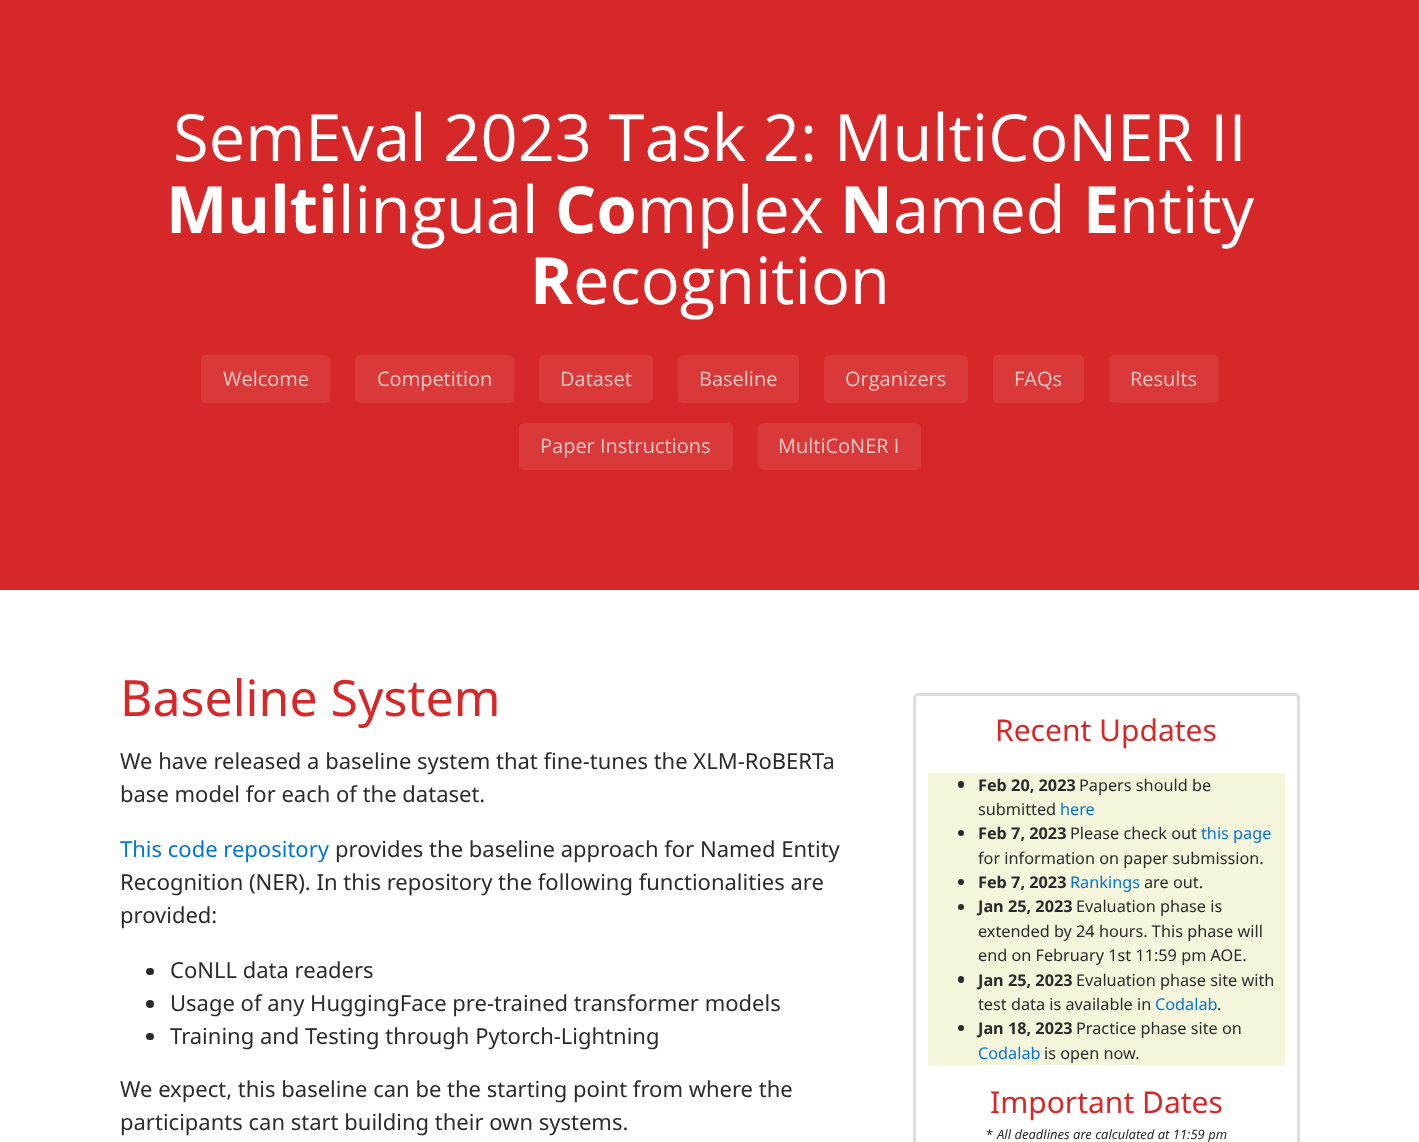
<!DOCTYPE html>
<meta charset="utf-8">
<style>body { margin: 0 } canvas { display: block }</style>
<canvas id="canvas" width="1419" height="1142"></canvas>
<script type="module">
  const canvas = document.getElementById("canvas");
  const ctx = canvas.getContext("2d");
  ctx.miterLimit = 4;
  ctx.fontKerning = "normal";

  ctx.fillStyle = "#ffffff";
  ctx.fillRect(0, 0, 1419, 1142);
  ctx.fillStyle = "#d62828";
  ctx.fillRect(0, 0, 1419, 590);
  ctx.font = "65px Open Sans";
  ctx.fillStyle = "#ffffff";
  ctx.fillText("SemEval 2023 Task 2: MultiCoNER II", 173, 161);
  ctx.font = "bold 65px Open Sans";
  ctx.fillText("Multi", 166, 233);
  ctx.font = "65px Open Sans";
  ctx.fillText("lingual", 338, 233);
  ctx.font = "bold 65px Open Sans";
  ctx.fillText("Co", 555, 233);
  ctx.font = "65px Open Sans";
  ctx.fillText("mplex", 637, 233);
  ctx.font = "bold 65px Open Sans";
  ctx.fillText("N", 840, 233);
  ctx.font = "65px Open Sans";
  ctx.fillText("amed", 893, 233);
  ctx.font = "bold 65px Open Sans";
  ctx.fillText("E", 1083, 233);
  ctx.font = "65px Open Sans";
  ctx.fillText("ntity", 1119, 233);
  ctx.font = "bold 65px Open Sans";
  ctx.fillText("R", 530, 304);
  ctx.font = "65px Open Sans";
  ctx.fillText("ecognition", 573, 304);
  ctx.fillStyle = "#d93939";
  ctx.beginPath();
  ctx.roundRect(201, 355, 129, 48, 5);
  ctx.fill();
  ctx.font = "20px Open Sans";
  ctx.fillStyle = "#f4c4c4";
  ctx.fillText("Welcome", 223, 386);
  ctx.fillStyle = "#d93939";
  ctx.beginPath();
  ctx.roundRect(355, 355, 159, 48, 5);
  ctx.fill();
  ctx.fillStyle = "#f4c4c4";
  ctx.fillText("Competition", 377, 386);
  ctx.fillStyle = "#d93939";
  ctx.beginPath();
  ctx.roundRect(539, 355, 114, 48, 5);
  ctx.fill();
  ctx.fillStyle = "#f4c4c4";
  ctx.fillText("Dataset", 560, 386);
  ctx.fillStyle = "#d93939";
  ctx.beginPath();
  ctx.roundRect(678, 355, 121, 48, 5);
  ctx.fill();
  ctx.fillStyle = "#f4c4c4";
  ctx.fillText("Baseline", 699, 386);
  ctx.fillStyle = "#d93939";
  ctx.beginPath();
  ctx.roundRect(824, 355, 144, 48, 5);
  ctx.fill();
  ctx.fillStyle = "#f4c4c4";
  ctx.fillText("Organizers", 845, 386);
  ctx.fillStyle = "#d93939";
  ctx.beginPath();
  ctx.roundRect(993, 355, 91, 48, 5);
  ctx.fill();
  ctx.fillStyle = "#f4c4c4";
  ctx.fillText("FAQs", 1014, 386);
  ctx.fillStyle = "#d93939";
  ctx.beginPath();
  ctx.roundRect(1109, 355, 110, 48, 5);
  ctx.fill();
  ctx.fillStyle = "#f4c4c4";
  ctx.fillText("Results", 1130, 386);
  ctx.fillStyle = "#d93939";
  ctx.beginPath();
  ctx.roundRect(519, 423, 214, 47, 5);
  ctx.fill();
  ctx.fillStyle = "#f4c4c4";
  ctx.fillText("Paper Instructions", 540, 453);
  ctx.fillStyle = "#d93939";
  ctx.beginPath();
  ctx.roundRect(758, 423, 163, 47, 5);
  ctx.fill();
  ctx.fillStyle = "#f4c4c4";
  ctx.fillText("MultiCoNER I", 778, 453);
  ctx.font = "50px Noto Sans";
  ctx.fillStyle = "#d62828";
  ctx.fillText("Baseline System", 120, 716);
  ctx.font = "22px Noto Sans";
  ctx.fillStyle = "#292b2c";
  ctx.fillText("We have released a baseline system that fine-tunes the XLM-RoBERTa", 120, 769);
  ctx.fillText("base model for each of the dataset.", 120, 802);
  ctx.beginPath();
  ctx.roundRect(914.5, 694.5, 384, 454, 3.5);
  ctx.strokeStyle = "#dddddd";
  ctx.lineWidth = 3;
  ctx.stroke();
  ctx.font = "30px Noto Sans";
  ctx.fillStyle = "#d62828";
  ctx.fillText("Recent Updates", 995, 741);
  ctx.fillStyle = "#f5f5dc";
  ctx.fillRect(928, 773, 357, 292);
  ctx.fillStyle = "#292b2c";
  ctx.beginPath();
  ctx.roundRect(958, 781, 6, 7, 3);
  ctx.fill();
  ctx.font = "bold 16.25px Noto Sans";
  ctx.fillText("Feb 20, 2023", 978, 791);
  ctx.font = "16.25px Noto Sans";
  ctx.fillText("Papers should be", 1079, 791);
  ctx.fillText("submitted", 978, 815);
  ctx.fillStyle = "#0275d8";
  ctx.fillText("here", 1060, 815);
  ctx.fillStyle = "#292b2c";
  ctx.beginPath();
  ctx.arc(961, 833, 3, 0, Math.PI * 2);
  ctx.fill();
  ctx.font = "bold 16.25px Noto Sans";
  ctx.fillText("Feb 7, 2023", 978, 839);
  ctx.font = "16.25px Noto Sans";
  ctx.fillText("Please check out", 1070, 839);
  ctx.fillStyle = "#0275d8";
  ctx.fillText("this page", 1201, 839);
  ctx.fillStyle = "#292b2c";
  ctx.fillText("for information on paper submission.", 978, 864);
  ctx.beginPath();
  ctx.arc(961, 882, 3, 0, Math.PI * 2);
  ctx.fill();
  ctx.font = "bold 16.25px Noto Sans";
  ctx.fillText("Feb 7, 2023", 978, 888);
  ctx.font = "16.25px Noto Sans";
  ctx.fillStyle = "#0275d8";
  ctx.fillText("Rankings", 1070, 888);
  ctx.fillStyle = "#292b2c";
  ctx.fillText("are out.", 1144, 888);
  ctx.beginPath();
  ctx.arc(961, 907, 3, 0, Math.PI * 2);
  ctx.fill();
  ctx.font = "bold 16.25px Noto Sans";
  ctx.fillText("Jan 25, 2023", 978, 912);
  ctx.font = "16.25px Noto Sans";
  ctx.fillText("Evaluation phase is", 1076, 912);
  ctx.fillText("extended by 24 hours. This phase will", 978, 937);
  ctx.fillText("end on February 1st 11:59 pm AOE.", 978, 961);
  ctx.beginPath();
  ctx.roundRect(958, 976, 6, 7, 3);
  ctx.fill();
  ctx.font = "bold 16.25px Noto Sans";
  ctx.fillText("Jan 25, 2023", 978, 986);
  ctx.font = "16.25px Noto Sans";
  ctx.fillText("Evaluation phase site with", 1076, 986);
  ctx.fillText("test data is available in", 978, 1010);
  ctx.fillStyle = "#0275d8";
  ctx.fillText("Codalab", 1155, 1010);
  ctx.fillStyle = "#292b2c";
  ctx.fillText(".", 1217, 1010);
  ctx.beginPath();
  ctx.arc(961, 1028, 3, 0, Math.PI * 2);
  ctx.fill();
  ctx.font = "bold 16.25px Noto Sans";
  ctx.fillText("Jan 18, 2023", 978, 1034);
  ctx.font = "16.25px Noto Sans";
  ctx.fillText("Practice phase site on", 1076, 1034);
  ctx.fillStyle = "#0275d8";
  ctx.fillText("Codalab", 978, 1059);
  ctx.fillStyle = "#292b2c";
  ctx.fillText("is open now.", 1044, 1059);
  ctx.font = "30px Noto Sans";
  ctx.fillStyle = "#d62828";
  ctx.fillText("Important Dates", 990, 1113);
  ctx.font = "13px Noto Sans";
  ctx.fillStyle = "#292b2c";
  ctx.fillText("*", 986, 1139);
  ctx.font = "italic 13px Noto Sans";
  ctx.fillText("All deadlines are calculated at 11:59 pm", 997, 1139);
  ctx.font = "22px Noto Sans";
  ctx.fillStyle = "#0275d8";
  ctx.fillText("This code repository", 120, 857);
  ctx.fillStyle = "#292b2c";
  ctx.fillText("provides the baseline approach for Named Entity", 335, 857);
  ctx.fillText("Recognition (NER). In this repository the following functionalities are", 120, 890);
  ctx.fillText("provided:", 120, 923);
  ctx.beginPath();
  ctx.roundRect(146, 968, 8, 7, 3.5);
  ctx.fill();
  ctx.fillText("CoNLL data readers", 170, 978);
  ctx.beginPath();
  ctx.arc(150, 1004, 4, 0, Math.PI * 2);
  ctx.fill();
  ctx.fillText("Usage of any HuggingFace pre-trained transformer models", 170, 1011);
  ctx.beginPath();
  ctx.roundRect(146, 1033, 8, 7, 3.5);
  ctx.fill();
  ctx.fillText("Training and Testing through Pytorch-Lightning", 170, 1044);
  ctx.fillText("We expect, this baseline can be the starting point from where the", 120, 1097);
  ctx.fillText("participants can start building their own systems.", 120, 1130);
</script>
